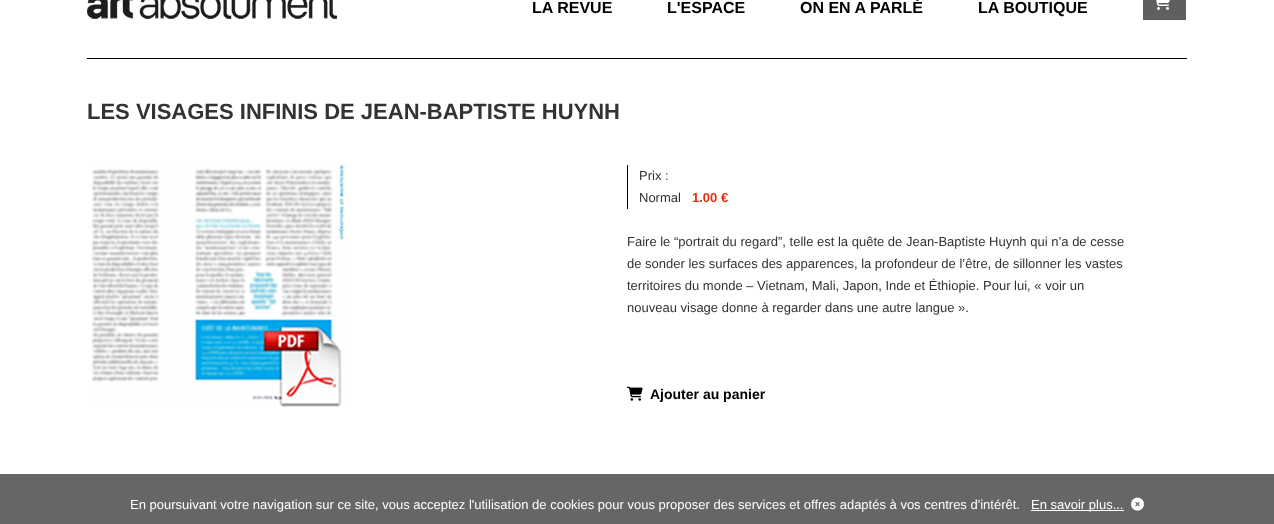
<!DOCTYPE html>
<meta charset="utf-8">
<style>body { margin: 0 } canvas { display: block }</style>
<canvas id="canvas" width="1274" height="524"></canvas>
<script type="module">
  const canvas = document.getElementById("canvas");
  const ctx = canvas.getContext("2d");
  ctx.miterLimit = 4;
  ctx.fontKerning = "normal";
  async function loadImage(src) {
    const img = new Image();
    img.src = src;
    await img.decode();
    return img;
  }

  ctx.fillStyle = "#ffffff";
  ctx.fillRect(0, 0, 1274, 524);
  ctx.fillStyle = "#000000";
  ctx.fillRect(87, 58, 1100, 1);
  ctx.drawImage(await loadImage("img1.png"), 87, 0, 250, 19);
  ctx.font = "bold 16px Liberation Sans";
  ctx.fillText("LA REVUE", 532, 13);
  ctx.fillText("L'ESPACE", 667, 13);
  ctx.fillText("ON EN A PARLÉ", 800, 13);
  ctx.fillText("LA BOUTIQUE", 978, 13);
  ctx.fillStyle = "#5f5f5f";
  ctx.fillRect(1143, 0, 43, 20);
  ctx.drawImage(await loadImage("img2.png"), 1156, 0, 14, 10);
  ctx.font = "bold 22px Liberation Sans";
  ctx.fillStyle = "#333333";
  ctx.fillText("LES VISAGES INFINIS DE JEAN-BAPTISTE HUYNH", 87, 119);
  ctx.drawImage(await loadImage("img3.png"), 91, 165, 254, 242);
  ctx.fillStyle = "#000000";
  ctx.fillRect(627, 165, 1, 44);
  ctx.font = "13px Liberation Sans";
  ctx.fillStyle = "#333333";
  ctx.fillText("Prix :", 639, 180);
  ctx.fillText("Normal", 639, 202);
  ctx.font = "bold 13px Liberation Sans";
  ctx.fillStyle = "#e92d08";
  ctx.fillText("1.00 €", 692, 202);
  ctx.font = "13px Liberation Sans";
  ctx.fillStyle = "#333333";
  ctx.fillText("Faire le “portrait du regard”, telle est la quête de Jean-Baptiste Huynh qui n’a de cesse", 627, 246);
  ctx.fillText("de sonder les surfaces des apparences, la profondeur de l’être, de sillonner les vastes", 627, 268);
  ctx.fillText("territoires du monde – Vietnam, Mali, Japon, Inde et Éthiopie. Pour lui, « voir un", 627, 290);
  ctx.fillText("nouveau visage donne à regarder dans une autre langue ».", 627, 312);
  ctx.drawImage(await loadImage("img4.png"), 627, 386, 16, 15);
  ctx.font = "bold 14px Liberation Sans";
  ctx.fillStyle = "#000000";
  ctx.fillText("Ajouter au panier", 650, 399);
  ctx.fillStyle = "#666666";
  ctx.fillRect(0, 474, 1274, 50);
  ctx.font = "13px Liberation Sans";
  ctx.fillStyle = "#ffffff";
  ctx.fillText("En poursuivant votre navigation sur ce site, vous acceptez l'utilisation de cookies pour vous proposer des services et offres adaptés à vos centres d'intérêt.", 130, 509);
  ctx.fillRect(1031, 510, 93, 1);
  ctx.fillText("En savoir plus...", 1031, 509);
  ctx.drawImage(await loadImage("img5.png"), 1131, 497, 13, 14);
</script>
